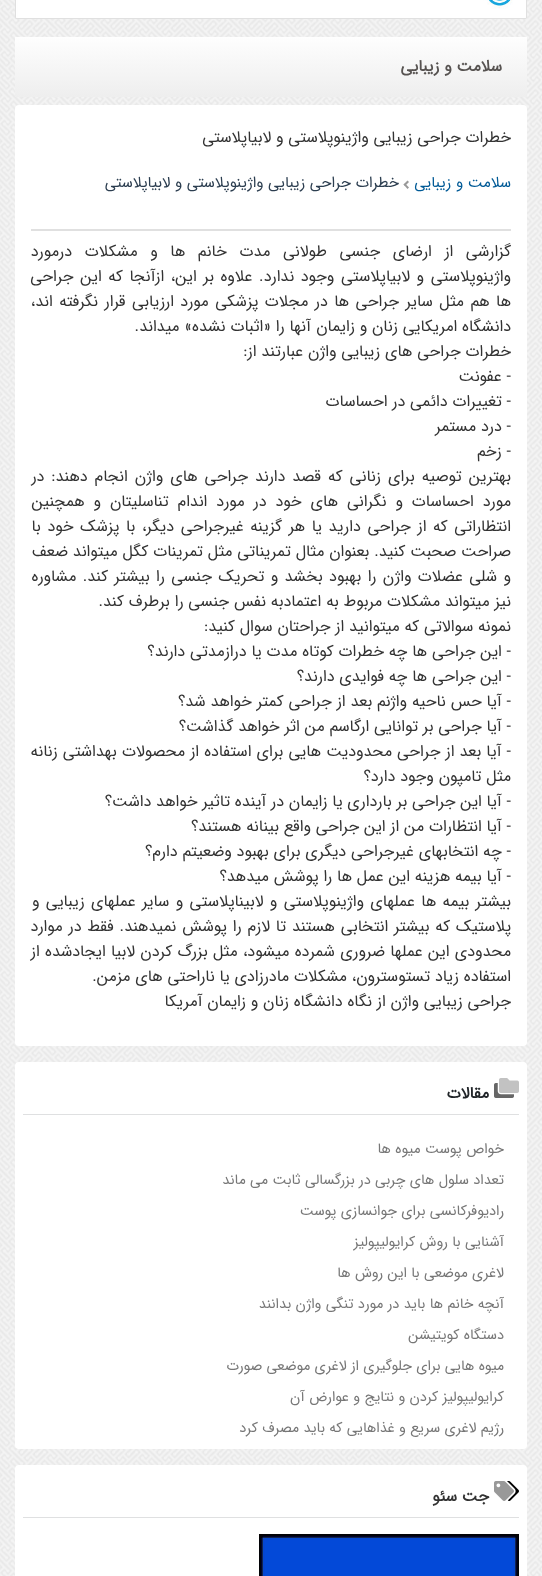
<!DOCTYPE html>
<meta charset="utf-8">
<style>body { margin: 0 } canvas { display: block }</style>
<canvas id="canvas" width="542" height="1576"></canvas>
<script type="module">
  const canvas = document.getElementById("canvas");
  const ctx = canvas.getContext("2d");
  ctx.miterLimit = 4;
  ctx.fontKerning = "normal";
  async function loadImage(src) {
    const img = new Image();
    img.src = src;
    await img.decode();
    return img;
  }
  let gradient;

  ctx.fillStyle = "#ffffff";
  ctx.fillRect(0, 0, 542, 1576);
  ctx.drawImage(await loadImage("img1.png"), 0, 0, 542, 1576);
  ctx.drawImage(await loadImage("img2.png"), 15, 0, 512, 19);
  gradient = ctx.createLinearGradient(271, 37, 271, 97);
  gradient.addColorStop(0, "#fefefe");
  gradient.addColorStop(1, "#eeeeee");
  ctx.fillStyle = gradient;
  ctx.fillRect(15, 37, 512, 60);
  ctx.direction = "rtl";
  ctx.font = "bold 16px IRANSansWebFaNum";
  ctx.fillStyle = "#575351";
  ctx.fillText("سلامت و زیبایی", 502, 71);
  ctx.fillStyle = "#ffffff";
  ctx.beginPath();
  ctx.roundRect(15, 105, 512, 941, 4);
  ctx.fill();
  ctx.fillStyle = "#e0e0e0";
  ctx.fillRect(31, 229, 480, 2);
  ctx.font = "16px IRANSansWebFaNum";
  ctx.fillStyle = "#333333";
  ctx.fillText("خطرات جراحی زیبایی واژینوپلاستی و لابیاپلاستی", 511, 142);
  ctx.font = "15.25px IRANSansWebFaNum";
  ctx.fillStyle = "#005a96";
  ctx.fillText("سلامت و زیبایی", 511, 187);
  ctx.fillStyle = "#999999";
  ctx.beginPath();
  ctx.moveTo(405, 183.5);
  ctx.lineTo(409, 187.5);
  ctx.lineTo(407.5, 189);
  ctx.lineTo(403.5, 184.5);
  ctx.closePath();
  ctx.fill();
  ctx.beginPath();
  ctx.moveTo(407.5, 180.5);
  ctx.lineTo(409, 182);
  ctx.lineTo(405, 186);
  ctx.lineTo(403.5, 184.5);
  ctx.closePath();
  ctx.fill();
  ctx.fillStyle = "#2c3e50";
  ctx.fillText("خطرات جراحی زیبایی واژینوپلاستی و لابیاپلاستی", 399, 187);
  ctx.wordSpacing = "7.75px";
  ctx.font = "16px IRANSansWebFaNum";
  ctx.fillStyle = "#333333";
  ctx.fillText("گزارشی از ارضای جنسی طولانی مدت خانم ها و مشکلات درمورد", 511, 256);
  ctx.wordSpacing = "1.75px";
  ctx.fillText("واژینوپلاستی و لابیاپلاستی وجود ندارد. علاوه بر این، ازآنجا که این جراحی", 511, 281);
  ctx.wordSpacing = "1.6px";
  ctx.fillText("ها هم مثل سایر جراحی ها در مجلات پزشکی مورد ارزیابی قرار نگرفته اند،", 511, 306);
  ctx.wordSpacing = "0px";
  ctx.fillText("دانشگاه امریکایی زنان و زایمان", 511, 331);
  ctx.fillText("آنها را «اثبات نشده» میداند.", 311, 331);
  ctx.fillText("خطرات جراحی های زیبایی واژن عبارتند از:", 511, 356);
  ctx.fillText("- عفونت", 511, 381);
  ctx.fillText("- تغییرات دائمی در احساسات", 511, 406);
  ctx.fillText("- درد مستمر", 511, 431);
  ctx.fillText("- زخم", 511, 456);
  ctx.wordSpacing = "2.1px";
  ctx.fillText("بهترین توصیه برای زنانی که قصد دارند جراحی های واژن انجام دهند: در", 511, 481);
  ctx.wordSpacing = "4.1px";
  ctx.fillText("مورد احساسات و نگرانی های خود در مورد اندام تناسلیتان و همچنین", 511, 506);
  ctx.wordSpacing = "1.8px";
  ctx.fillText("انتظاراتی که از جراحی دارید یا هر گزینه غیرجراحی دیگر، با پزشک خود با", 511, 531);
  ctx.wordSpacing = "0px";
  ctx.fillText("صراحت صحبت کنید. بعنوان مثال تمریناتی مثل تمرینات کگل میتواند ضعف", 511, 556);
  ctx.wordSpacing = "1.5px";
  ctx.fillText("و شلی عضلات واژن را بهبود بخشد و تحریک جنسی را بیشتر کند. مشاوره", 511, 581);
  ctx.wordSpacing = "0px";
  ctx.fillText("نیز میتواند مشکلات مربوط به اعتمادبه نفس جنسی را برطرف کند.", 511, 606);
  ctx.fillText("نمونه سوالاتی که میتوانید از جراحتان سوال کنید:", 511, 631);
  ctx.fillText("- این جراحی ها چه خطرات کوتاه مدت یا درازمدتی دارند؟", 511, 656);
  ctx.fillText("- این جراحی ها چه فوایدی دارند؟", 511, 681);
  ctx.fillText("- آیا حس ناحیه واژنم بعد از جراحی کمتر خواهد شد؟", 511, 706);
  ctx.fillText("- آیا جراحی بر توانایی ارگاسم من اثر خواهد گذاشت؟", 511, 731);
  ctx.wordSpacing = "0.25px";
  ctx.fillText("- آیا بعد از جراحی محدودیت هایی برای استفاده از محصولات بهداشتی زنانه", 511, 756);
  ctx.wordSpacing = "0px";
  ctx.fillText("مثل تامپون وجود دارد؟", 511, 781);
  ctx.fillText("- آیا این جراحی بر بارداری یا زایمان در آینده تاثیر خواهد داشت؟", 511, 806);
  ctx.fillText("- آیا انتظارات من از این جراحی واقع بینانه هستند؟", 511, 831);
  ctx.fillText("- چه انتخابهای غیرجراحی دیگری برای بهبود وضعیتم دارم؟", 511, 856);
  ctx.fillText("- آیا بیمه هزینه این عمل ها را پوشش میدهد؟", 511, 881);
  ctx.wordSpacing = "1.5px";
  ctx.fillText("بیشتر بیمه ها عملهای واژینوپلاستی و لابیناپلاستی و سایر عملهای زیبایی و", 511, 906);
  ctx.wordSpacing = "1px";
  ctx.fillText("پلاستیک که بیشتر انتخابی هستند تا لازم را پوشش نمیدهند. فقط در موارد", 511, 931);
  ctx.wordSpacing = "0.5px";
  ctx.fillText("محدودی این عملها ضروری شمرده میشود، مثل بزرگ کردن لابیا ایجادشده از", 511, 956);
  ctx.wordSpacing = "0px";
  ctx.fillText("استفاده زیاد تستوسترون، مشکلات مادرزادی یا ناراحتی های مزمن.", 511, 981);
  ctx.fillText("جراحی زیبایی واژن از نگاه دانشگاه زنان و زایمان آمریکا", 511, 1006);
  ctx.fillStyle = "#ffffff";
  ctx.beginPath();
  ctx.roundRect(15, 1062, 512, 387, 4);
  ctx.fill();
  ctx.drawImage(await loadImage("img3.png"), 494, 1078, 25, 20);
  ctx.font = "bold 16px IRANSansWebFaNum";
  ctx.fillStyle = "#212529";
  ctx.fillText("مقالات", 489, 1098);
  ctx.fillStyle = "#dfe0e1";
  ctx.fillRect(23, 1114, 496, 1);
  ctx.font = "14.4px IRANSansWebFaNum";
  ctx.fillStyle = "#777777";
  ctx.fillText("خواص پوست میوه ها", 504, 1153);
  ctx.fillText("تعداد سلول های چربی در بزرگسالی ثابت می ماند", 504, 1184);
  ctx.fillText("رادیوفرکانسی برای جوانسازی پوست", 504, 1215);
  ctx.fillText("آشنایی با روش کرایولیپولیز", 504, 1246);
  ctx.fillText("لاغری موضعی با این روش ها", 504, 1277);
  ctx.fillText("آنچه خانم ها باید در مورد تنگی واژن بدانند", 504, 1308);
  ctx.fillText("دستگاه کویتیشن", 504, 1339);
  ctx.fillText("میوه‌ هایی برای جلوگیری از لاغری موضعی صورت", 504, 1370);
  ctx.fillText("کرایولیپولیز کردن و نتایج و عوارض آن", 504, 1401);
  ctx.fillText("رژیم لاغری سریع و غذاهایی که باید مصرف کرد", 504, 1432);
  ctx.fillStyle = "#ffffff";
  ctx.beginPath();
  ctx.roundRect(15, 1465, 512, 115, 4);
  ctx.fill();
  ctx.drawImage(await loadImage("img4.png"), 494, 1481, 25, 20);
  ctx.font = "bold 16px IRANSansWebFaNum";
  ctx.fillStyle = "#333333";
  ctx.fillText("جت سئو", 489, 1501);
  ctx.fillStyle = "#dfe0e1";
  ctx.fillRect(23, 1517, 496, 1);
  ctx.drawImage(await loadImage("img5.png"), 259, 1534, 260, 42);
</script>
